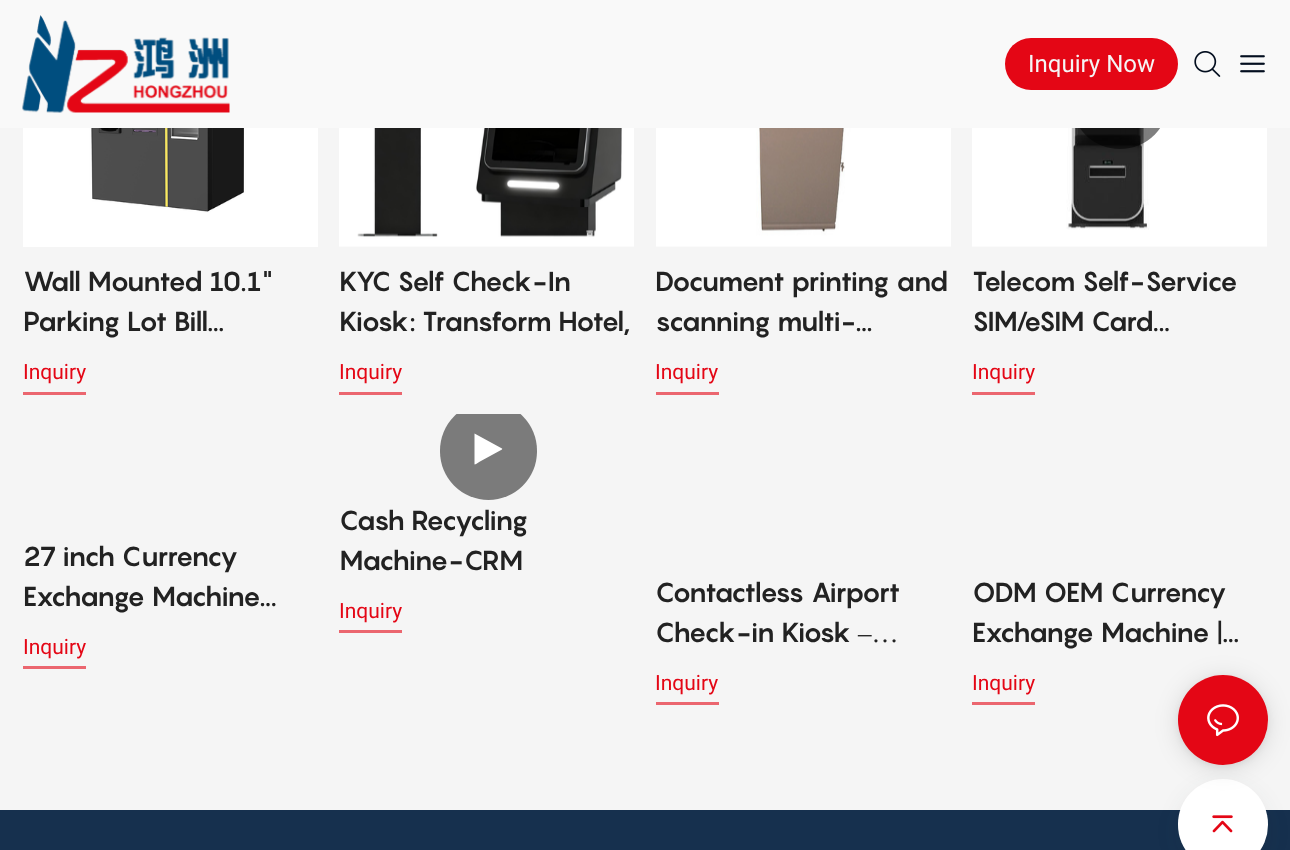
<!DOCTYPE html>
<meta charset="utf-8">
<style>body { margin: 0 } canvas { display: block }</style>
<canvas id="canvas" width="1290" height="850"></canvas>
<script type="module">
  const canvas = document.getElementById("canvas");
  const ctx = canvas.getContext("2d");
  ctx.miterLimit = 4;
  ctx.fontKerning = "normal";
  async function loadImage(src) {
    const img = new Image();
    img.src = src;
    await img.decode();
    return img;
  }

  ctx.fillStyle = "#f5f5f5";
  ctx.fillRect(0, 0, 1290, 850);
  ctx.drawImage(await loadImage("img7.png"), 972, 128, 295, 119);
  ctx.fillStyle = "rgba(0, 0, 0, 0.5)";
  ctx.beginPath();
  ctx.arc(1120, 100, 49, 0, Math.PI * 2);
  ctx.fill();
  ctx.fillStyle = "#f9f9f9";
  ctx.fillRect(0, 0, 1290, 128);
  ctx.drawImage(await loadImage("img1.png"), 22, 15, 208, 98);
  ctx.fillStyle = "#e40615";
  ctx.beginPath();
  ctx.roundRect(1005, 38, 173, 52, 26);
  ctx.fill();
  ctx.font = "24px Roboto";
  ctx.fillStyle = "#f5f5f5";
  ctx.fillText("Inquiry Now", 1028, 72);
  ctx.drawImage(await loadImage("img2.png"), 1194, 51, 27, 26);
  ctx.drawImage(await loadImage("img3.png"), 1240, 55, 25, 18);
  ctx.drawImage(await loadImage("img4.png"), 23, 128, 295, 119);
  ctx.font = "bold 27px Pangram";
  ctx.fillStyle = "#222222";
  ctx.fillText("Wall Mounted 10.1\"", 23, 291);
  ctx.fillText("Parking Lot Bill...", 23, 331);
  ctx.font = "21px Roboto";
  ctx.fillStyle = "#e40615";
  ctx.fillText("Inquiry", 23, 379);
  ctx.fillStyle = "#eb666f";
  ctx.fillRect(23, 392, 63, 3);
  ctx.drawImage(await loadImage("img5.png"), 339, 128, 295, 119);
  ctx.font = "bold 27px Pangram";
  ctx.fillStyle = "#222222";
  ctx.fillText("KYC Self Check-In", 339, 291);
  ctx.fillText("Kiosk: Transform Hotel,", 339, 331);
  ctx.font = "21px Roboto";
  ctx.fillStyle = "#e40615";
  ctx.fillText("Inquiry", 339, 379);
  ctx.fillStyle = "#eb666f";
  ctx.fillRect(339, 392, 63, 3);
  ctx.drawImage(await loadImage("img6.png"), 656, 128, 295, 119);
  ctx.font = "bold 27px Pangram";
  ctx.fillStyle = "#222222";
  ctx.fillText("Document printing and", 655, 291);
  ctx.fillText("scanning multi-...", 655, 331);
  ctx.font = "21px Roboto";
  ctx.fillStyle = "#e40615";
  ctx.fillText("Inquiry", 655, 379);
  ctx.fillStyle = "#eb666f";
  ctx.fillRect(656, 392, 63, 3);
  ctx.font = "bold 27px Pangram";
  ctx.fillStyle = "#222222";
  ctx.fillText("Telecom Self-Service", 972, 291);
  ctx.fillText("SIM/eSIM Card...", 972, 331);
  ctx.font = "21px Roboto";
  ctx.fillStyle = "#e40615";
  ctx.fillText("Inquiry", 972, 379);
  ctx.fillStyle = "#eb666f";
  ctx.fillRect(972, 392, 63, 3);
  ctx.font = "bold 27px Pangram";
  ctx.fillStyle = "#222222";
  ctx.fillText("27 inch Currency", 23, 566);
  ctx.fillText("Exchange Machine...", 23, 606);
  ctx.font = "21px Roboto";
  ctx.fillStyle = "#e40615";
  ctx.fillText("Inquiry", 23, 654);
  ctx.fillStyle = "#eb666f";
  ctx.fillRect(23, 666, 63, 3);
  ctx.save();
  ctx.beginPath();
  ctx.rect(339, 414, 296, 291);
  ctx.clip();
  ctx.fillStyle = "#7b7b7b";
  ctx.beginPath();
  ctx.roundRect(440, 402, 97, 98, 48.5);
  ctx.fill();
  ctx.restore();
  ctx.fillStyle = "#ffffff";
  ctx.beginPath();
  ctx.moveTo(502, 449.5);
  ctx.lineTo(480, 461.5);
  ctx.bezierCurveTo(476, 464, 474.5, 465, 474.5, 464);
  ctx.lineTo(474.5, 434);
  ctx.lineTo(474.5, 433.5);
  ctx.lineTo(502, 448.5);
  ctx.bezierCurveTo(502.5, 449, 502, 449, 502, 449.5);
  ctx.closePath();
  ctx.fill();
  ctx.font = "bold 27px Pangram";
  ctx.fillStyle = "#222222";
  ctx.fillText("Cash Recycling", 339, 530);
  ctx.fillText("Machine-CRM", 339, 570);
  ctx.font = "21px Roboto";
  ctx.fillStyle = "#e40615";
  ctx.fillText("Inquiry", 339, 618);
  ctx.fillStyle = "#eb666f";
  ctx.fillRect(339, 630, 63, 3);
  ctx.font = "bold 27px Pangram";
  ctx.fillStyle = "#222222";
  ctx.fillText("Contactless Airport", 655, 602);
  ctx.fillText("Check-in Kiosk", 655, 642);
  ctx.font = "27px Liberation Serif";
  ctx.fillText("–…", 858, 642);
  ctx.font = "21px Roboto";
  ctx.fillStyle = "#e40615";
  ctx.fillText("Inquiry", 655, 690);
  ctx.fillStyle = "#eb666f";
  ctx.fillRect(656, 702, 63, 3);
  ctx.font = "bold 27px Pangram";
  ctx.fillStyle = "#222222";
  ctx.fillText("ODM OEM Currency", 972, 602);
  ctx.fillText("Exchange Machine |...", 972, 642);
  ctx.font = "21px Roboto";
  ctx.fillStyle = "#e40615";
  ctx.fillText("Inquiry", 972, 690);
  ctx.fillStyle = "#eb666f";
  ctx.fillRect(972, 702, 63, 3);
  ctx.fillStyle = "#16304e";
  ctx.fillRect(0, 810, 1290, 40);
  ctx.fillStyle = "rgba(40, 47, 54, 0.08)";
  ctx.filter = "blur(11px)";
  ctx.beginPath();
  ctx.roundRect(1178, 786, 90, 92, 45);
  ctx.fill();
  ctx.filter = "none";
  ctx.fillStyle = "#ffffff";
  ctx.beginPath();
  ctx.roundRect(1178, 779, 90, 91, 45);
  ctx.fill();
  ctx.fillStyle = "rgba(0, 0, 0, 0.12)";
  ctx.filter = "blur(12px)";
  ctx.beginPath();
  ctx.roundRect(1178, 678, 90, 90, 45);
  ctx.fill();
  ctx.filter = "none";
  ctx.fillStyle = "rgba(0, 0, 0, 0.06)";
  ctx.filter = "blur(3px)";
  ctx.beginPath();
  ctx.roundRect(1178, 677, 90, 90, 45);
  ctx.fill();
  ctx.filter = "none";
  ctx.fillStyle = "#e40615";
  ctx.beginPath();
  ctx.arc(1223, 720, 45, 0, Math.PI * 2);
  ctx.fill();
  ctx.drawImage(await loadImage("img8.png"), 1207, 704, 32, 33);
  ctx.drawImage(await loadImage("img9.png"), 1212, 815, 21, 18);
</script>
